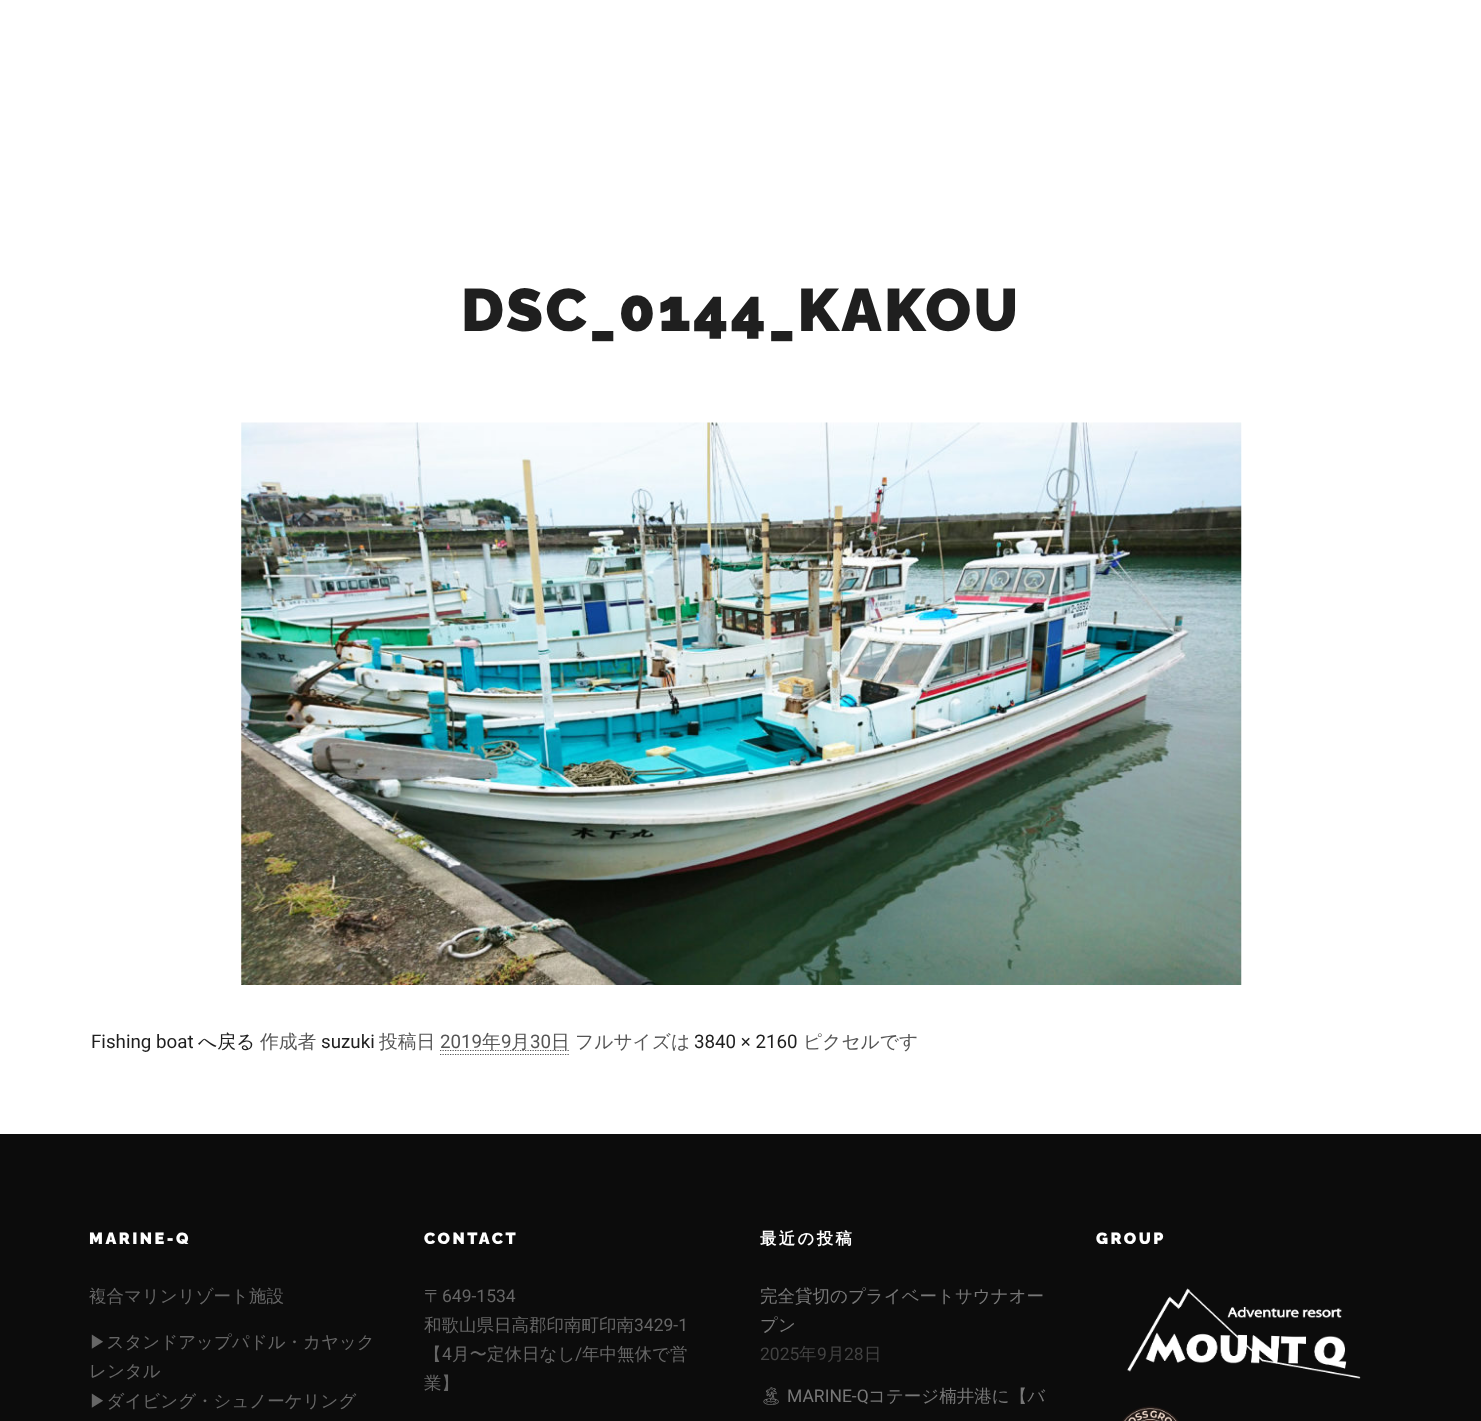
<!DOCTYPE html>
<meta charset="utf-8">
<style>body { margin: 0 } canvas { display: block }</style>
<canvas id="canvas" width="1481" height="1421"></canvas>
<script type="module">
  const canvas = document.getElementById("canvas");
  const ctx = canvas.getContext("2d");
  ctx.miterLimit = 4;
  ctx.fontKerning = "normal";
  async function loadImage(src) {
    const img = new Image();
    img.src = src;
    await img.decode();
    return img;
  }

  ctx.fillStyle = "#ffffff";
  ctx.fillRect(0, 0, 1481, 1421);
  ctx.letterSpacing = "2.5px";
  ctx.font = "900 60px Raleway";
  ctx.fillStyle = "#1f1f1f";
  ctx.fillText("DSC_0144_KAKOU", 461, 331);
  ctx.drawImage(await loadImage("img1.png"), 241, 422, 1001, 563);
  ctx.letterSpacing = "0px";
  ctx.font = "18.75px Roboto";
  ctx.fillText("Fishing boat", 91, 1048);
  ctx.font = "500 18.75px WenQuanYi Zen Hei";
  ctx.fillText("へ戻る", 198, 1048);
  ctx.fillStyle = "#555555";
  ctx.fillText("作成者", 260, 1048);
  ctx.font = "18.75px Roboto";
  ctx.fillStyle = "#1f1f1f";
  ctx.fillText("suzuki", 321, 1048);
  ctx.font = "500 18.75px WenQuanYi Zen Hei";
  ctx.fillStyle = "#555555";
  ctx.fillText("投稿日", 379, 1048);
  ctx.font = "18.75px Roboto";
  ctx.fillText("2019", 440, 1048);
  ctx.beginPath();
  ctx.moveTo(440, 1050.5);
  ctx.lineTo(570, 1050.5);
  ctx.strokeStyle = "#555555";
  ctx.lineWidth = 1.2;
  ctx.setLineDash([1.25, 1.25]);
  ctx.stroke();
  ctx.font = "500 18.75px WenQuanYi Zen Hei";
  ctx.fillText("年", 482, 1048);
  ctx.font = "18.75px Roboto";
  ctx.fillText("9", 501, 1048);
  ctx.font = "500 18.75px WenQuanYi Zen Hei";
  ctx.fillText("月", 511, 1048);
  ctx.beginPath();
  ctx.moveTo(440, 1054.5);
  ctx.lineTo(570, 1054.5);
  ctx.stroke();
  ctx.font = "18.75px Roboto";
  ctx.fillText("30", 530, 1048);
  ctx.font = "500 18.75px WenQuanYi Zen Hei";
  ctx.fillText("日", 551, 1048);
  ctx.fillText("フルサイズは", 575, 1048);
  ctx.font = "18.75px Roboto";
  ctx.fillStyle = "#1f1f1f";
  ctx.fillText("3840 × 2160", 694, 1048);
  ctx.font = "500 18.75px WenQuanYi Zen Hei";
  ctx.fillStyle = "#555555";
  ctx.fillText("ピクセルです", 803, 1048);
  ctx.fillStyle = "#0c0c0c";
  ctx.fillRect(0, 1134, 1481, 287);
  ctx.letterSpacing = "2.5px";
  ctx.font = "900 16.25px Raleway";
  ctx.fillStyle = "#ffffff";
  ctx.fillText("MARINE-Q", 89, 1244);
  ctx.letterSpacing = "0px";
  ctx.font = "500 17.5px WenQuanYi Zen Hei";
  ctx.fillStyle = "#666666";
  ctx.fillText("複合マリンリゾート施設", 89, 1302);
  ctx.fillText("▶︎スタンドアップパドル・カヤック", 89, 1348);
  ctx.fillText("レンタル", 89, 1377);
  ctx.fillText("▶︎ダイビング・シュノーケリング", 89, 1407);
  ctx.letterSpacing = "2.5px";
  ctx.font = "900 16.25px Raleway";
  ctx.fillStyle = "#ffffff";
  ctx.fillText("CONTACT", 424, 1244);
  ctx.letterSpacing = "0px";
  ctx.font = "500 17.5px WenQuanYi Zen Hei";
  ctx.fillStyle = "#666666";
  ctx.fillText("〒", 424, 1302);
  ctx.font = "17.5px Roboto";
  ctx.fillText("649-1534", 442, 1302);
  ctx.font = "500 17.5px WenQuanYi Zen Hei";
  ctx.fillText("和歌山県日高郡印南町印南", 424, 1331);
  ctx.font = "17.5px Roboto";
  ctx.fillText("3429-1", 634, 1331);
  ctx.font = "500 17.5px WenQuanYi Zen Hei";
  ctx.fillText("【", 424, 1360);
  ctx.font = "17.5px Roboto";
  ctx.fillText("4", 442, 1360);
  ctx.font = "500 17.5px WenQuanYi Zen Hei";
  ctx.fillText("月〜定休日なし", 452, 1360);
  ctx.font = "17.5px Roboto";
  ctx.fillText("/", 575, 1360);
  ctx.font = "500 17.5px WenQuanYi Zen Hei";
  ctx.fillText("年中無休で営", 582, 1360);
  ctx.fillText("業】", 424, 1389);
  ctx.letterSpacing = "2.5px";
  ctx.font = "bold 16.25px WenQuanYi Zen Hei";
  ctx.fillStyle = "#ffffff";
  ctx.fillText("最近の投稿", 760, 1244);
  ctx.letterSpacing = "0px";
  ctx.font = "500 17.5px WenQuanYi Zen Hei";
  ctx.fillStyle = "#777777";
  ctx.fillText("完全貸切のプライベートサウナオー", 760, 1302);
  ctx.fillText("プン", 760, 1331);
  ctx.font = "17.5px Roboto";
  ctx.fillStyle = "#424242";
  ctx.fillText("2025", 760, 1360);
  ctx.font = "500 17.5px WenQuanYi Zen Hei";
  ctx.fillText("年", 799, 1360);
  ctx.font = "17.5px Roboto";
  ctx.fillText("9", 817, 1360);
  ctx.font = "500 17.5px WenQuanYi Zen Hei";
  ctx.fillText("月", 827, 1360);
  ctx.font = "17.5px Roboto";
  ctx.fillText("28", 844, 1360);
  ctx.font = "500 17.5px WenQuanYi Zen Hei";
  ctx.fillText("日", 864, 1360);
  ctx.font = "17.5px Noto Emoji";
  ctx.fillStyle = "#777777";
  ctx.fillText("🏝", 760, 1402);
  ctx.font = "17.5px Roboto";
  ctx.fillText("MARINE-Q", 787, 1402);
  ctx.font = "500 17.5px WenQuanYi Zen Hei";
  ctx.fillText("コテージ楠井港に【バ", 868, 1402);
  ctx.letterSpacing = "2.5px";
  ctx.font = "900 16.25px Raleway";
  ctx.fillStyle = "#ffffff";
  ctx.fillText("GROUP", 1096, 1244);
  ctx.drawImage(await loadImage("img2.png"), 1127, 1288, 234, 91);
  ctx.drawImage(await loadImage("img3.png"), 1122, 1406, 57, 15);
</script>
